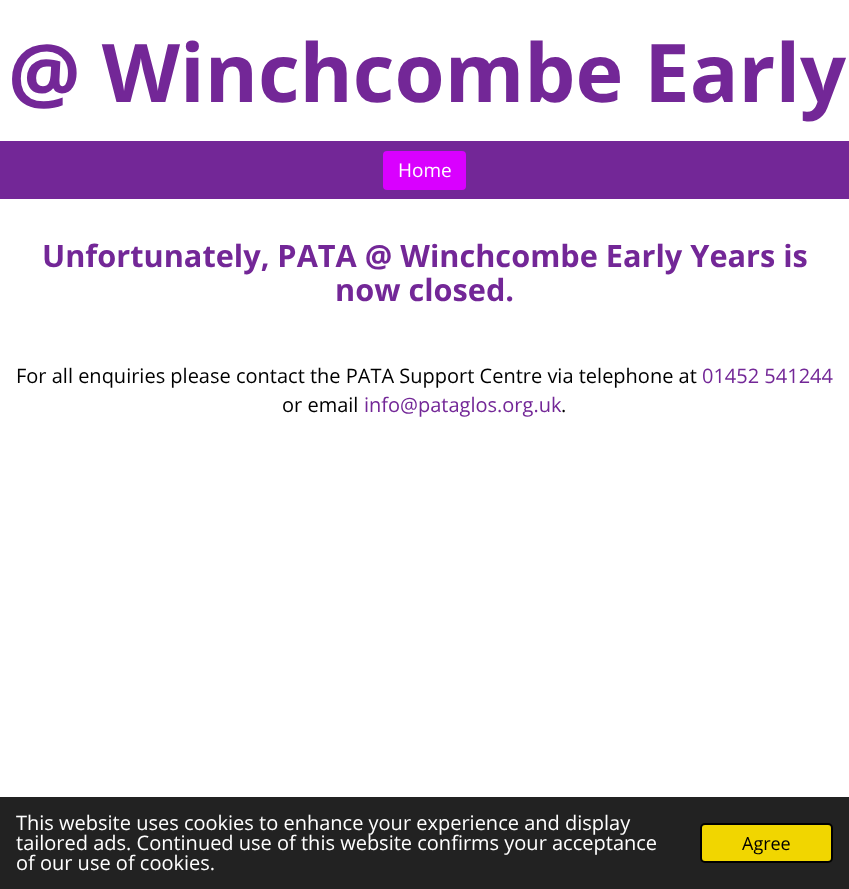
<!DOCTYPE html>
<meta charset="utf-8">
<style>body { margin: 0 } canvas { display: block }</style>
<canvas id="canvas" width="849" height="889"></canvas>
<script type="module">
  const canvas = document.getElementById("canvas");
  const ctx = canvas.getContext("2d");
  ctx.miterLimit = 4;
  ctx.fontKerning = "normal";

  ctx.fillStyle = "#ffffff";
  ctx.fillRect(0, 0, 849, 889);
  ctx.font = "bold 81px Open Sans";
  ctx.fillStyle = "#732797";
  ctx.fillText("@ Winchcombe Early", 8, 102);
  ctx.fillRect(0, 141, 849, 58);
  ctx.fillStyle = "#d900ff";
  ctx.beginPath();
  ctx.roundRect(383, 151, 83, 39, 4);
  ctx.fill();
  ctx.font = "19px Open Sans";
  ctx.fillStyle = "#ffffff";
  ctx.fillText("Home", 398, 177);
  ctx.font = "bold 30.7px Open Sans";
  ctx.fillStyle = "#732797";
  ctx.fillText("Unfortunately, PATA @ Winchcombe Early Years is", 42, 267);
  ctx.fillText("now closed.", 335, 301);
  ctx.font = "20px Open Sans";
  ctx.fillStyle = "#000000";
  ctx.fillText("For all enquiries please contact the PATA Support Centre via telephone at", 16, 383);
  ctx.fillStyle = "#732797";
  ctx.fillText("01452 541244", 702, 383);
  ctx.fillStyle = "#000000";
  ctx.fillText("or email", 282, 412);
  ctx.fillStyle = "#732797";
  ctx.fillText("info@pataglos.org.uk", 364, 412);
  ctx.fillStyle = "#000000";
  ctx.fillText(".", 561, 412);
  ctx.fillStyle = "#222222";
  ctx.fillRect(0, 797, 849, 92);
  ctx.fillStyle = "#ffffff";
  ctx.fillText("This website uses cookies to enhance your experience and display", 16, 830);
  ctx.fillText("tailored ads. Continued use of this website confirms your acceptance", 16, 850);
  ctx.fillText("of our use of cookies.", 16, 870);
  ctx.fillStyle = "#f1d600";
  ctx.beginPath();
  ctx.roundRect(701, 824, 131, 38, 4);
  ctx.fill();
  ctx.strokeStyle = "#000000";
  ctx.lineWidth = 2;
  ctx.stroke();
  ctx.font = "18px Open Sans";
  ctx.fillStyle = "#000000";
  ctx.fillText("Agree", 742, 850);
</script>
